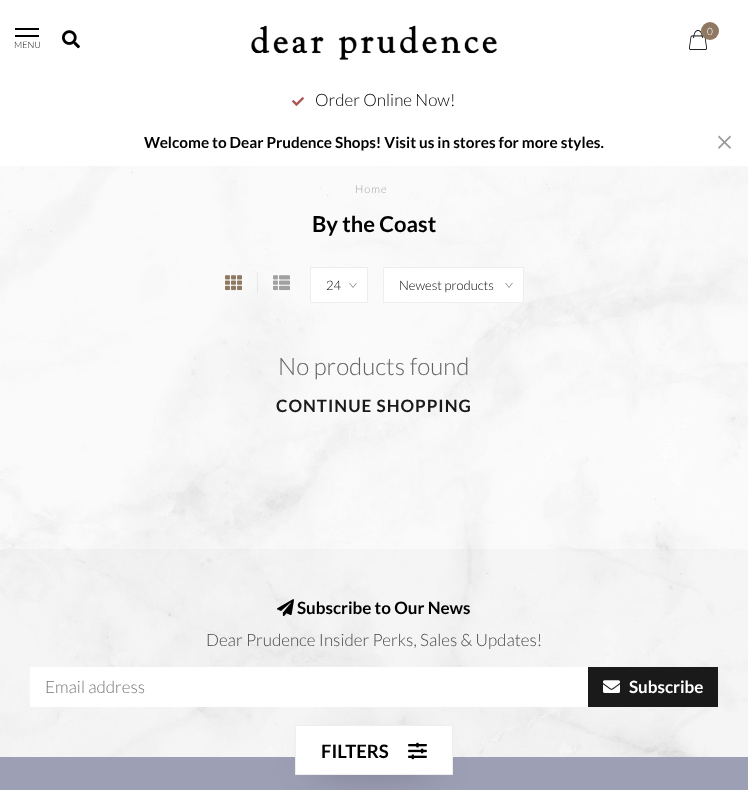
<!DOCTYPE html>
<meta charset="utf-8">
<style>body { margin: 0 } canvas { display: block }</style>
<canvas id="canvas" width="748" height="790"></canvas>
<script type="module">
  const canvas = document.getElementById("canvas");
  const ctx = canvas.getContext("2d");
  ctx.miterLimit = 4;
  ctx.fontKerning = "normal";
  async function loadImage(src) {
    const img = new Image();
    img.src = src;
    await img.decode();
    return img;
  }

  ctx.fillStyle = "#ffffff";
  ctx.fillRect(0, 0, 748, 790);
  ctx.drawImage(await loadImage("img1.png"), 0, 166, 748, 591);
  ctx.drawImage(await loadImage("img2.png"), 251, 25, 246, 35);
  ctx.drawImage(await loadImage("img3.png"), 689, 30, 18, 20);
  ctx.fillStyle = "#8f7962";
  ctx.beginPath();
  ctx.arc(710, 31, 9, 0, Math.PI * 2);
  ctx.fill();
  ctx.font = "300 10px Lato";
  ctx.fillStyle = "#ffffff";
  ctx.fillText("0", 707, 35);
  ctx.fillStyle = "#000000";
  ctx.fillRect(15, 28, 24, 2);
  ctx.fillRect(15, 35, 24, 2);
  ctx.font = "300 9px Lato";
  ctx.fillText("MENU", 14, 48);
  ctx.drawImage(await loadImage("img4.png"), 62, 30, 18, 19);
  ctx.drawImage(await loadImage("img5.png"), 292, 97, 12, 9);
  ctx.font = "300 17px Lato";
  ctx.fillText("Order Online Now!", 315, 106);
  ctx.font = "bold 15.3px Lato";
  ctx.fillText("Welcome to Dear Prudence Shops! Visit us in stores for more styles.", 144, 148);
  ctx.fillStyle = "#999999";
  ctx.beginPath();
  ctx.moveTo(719, 135.5);
  ctx.lineTo(731, 147.5);
  ctx.lineTo(730, 149);
  ctx.lineTo(718, 137);
  ctx.closePath();
  ctx.fill();
  ctx.beginPath();
  ctx.moveTo(718, 147.5);
  ctx.lineTo(730, 135.5);
  ctx.lineTo(731, 137);
  ctx.lineTo(719, 149);
  ctx.closePath();
  ctx.fill();
  ctx.letterSpacing = "1px";
  ctx.font = "300 11px Lato";
  ctx.fillStyle = "#a5a5a5";
  ctx.fillText("Home", 355, 193);
  ctx.letterSpacing = "0px";
  ctx.font = "bold 22px Lato";
  ctx.fillStyle = "#000000";
  ctx.fillText("By the Coast", 312, 232);
  ctx.fillStyle = "rgba(155, 155, 155, 0.17)";
  ctx.fillRect(257, 272, 1, 21);
  ctx.drawImage(await loadImage("img6.png"), 225, 275, 17, 16);
  ctx.drawImage(await loadImage("img7.png"), 273, 275, 17, 16);
  ctx.fillStyle = "#ffffff";
  ctx.fillRect(311, 268, 56, 34);
  ctx.beginPath();
  ctx.moveTo(356.5, 283);
  ctx.lineTo(353, 287.5);
  ctx.lineTo(349.5, 283);
  ctx.strokeStyle = "#666666";
  ctx.lineWidth = 0.7;
  ctx.stroke();
  ctx.strokeStyle = "#eeeeee";
  ctx.lineWidth = 1;
  ctx.strokeRect(310.5, 267.5, 57, 35);
  ctx.font = "300 13px Lato";
  ctx.fillStyle = "#000000";
  ctx.fillText("24", 326, 290);
  ctx.fillStyle = "#ffffff";
  ctx.fillRect(384, 268, 139, 34);
  ctx.beginPath();
  ctx.moveTo(512.5, 283);
  ctx.lineTo(509, 287.5);
  ctx.lineTo(505.5, 283);
  ctx.strokeStyle = "#666666";
  ctx.lineWidth = 0.7;
  ctx.stroke();
  ctx.strokeStyle = "#eeeeee";
  ctx.lineWidth = 1;
  ctx.strokeRect(383.5, 267.5, 140, 35);
  ctx.fillStyle = "#000000";
  ctx.fillText("Newest products", 399, 290);
  ctx.font = "300 24px Lato";
  ctx.fillStyle = "#636363";
  ctx.fillText("No products found", 278, 375);
  ctx.letterSpacing = "1px";
  ctx.font = "bold 17px Lato";
  ctx.fillStyle = "#1b1a1a";
  ctx.fillText("CONTINUE SHOPPING", 276, 412);
  ctx.fillStyle = "rgba(155, 155, 155, 0.05)";
  ctx.fillRect(0, 549, 748, 208);
  ctx.drawImage(await loadImage("img8.png"), 277, 599, 17, 18);
  ctx.letterSpacing = "0px";
  ctx.fillStyle = "#000000";
  ctx.fillText("Subscribe to Our News", 297, 614);
  ctx.font = "300 17px Lato";
  ctx.fillStyle = "#484848";
  ctx.fillText("Dear Prudence Insider Perks, Sales & Updates!", 206, 646);
  ctx.fillStyle = "#ffffff";
  ctx.fillRect(30, 667, 558, 40);
  ctx.fillStyle = "#757575";
  ctx.fillText("Email address", 45, 693);
  ctx.fillStyle = "#1b1a1a";
  ctx.fillRect(588, 667, 130, 40);
  ctx.drawImage(await loadImage("img9.png"), 603, 680, 17, 13);
  ctx.font = "bold 17px Lato";
  ctx.fillStyle = "#ffffff";
  ctx.fillText("Subscribe", 629, 693);
  ctx.fillStyle = "#9d9fb5";
  ctx.fillRect(0, 757, 748, 33);
  ctx.fillStyle = "#000000";
  ctx.filter = "blur(20px)";
  ctx.beginPath();
  ctx.rect(317, 757, 114, 6);
  ctx.fill();
  ctx.filter = "none";
  ctx.fillStyle = "#ffffff";
  ctx.beginPath();
  ctx.rect(295.5, 725.5, 157, 49);
  ctx.fill();
  ctx.stroke();
  ctx.font = "bold 18.5px Lato";
  ctx.fillStyle = "#000000";
  ctx.fillText("FILTERS", 321, 758);
  ctx.drawImage(await loadImage("img10.png"), 408, 742, 19, 18);
</script>
